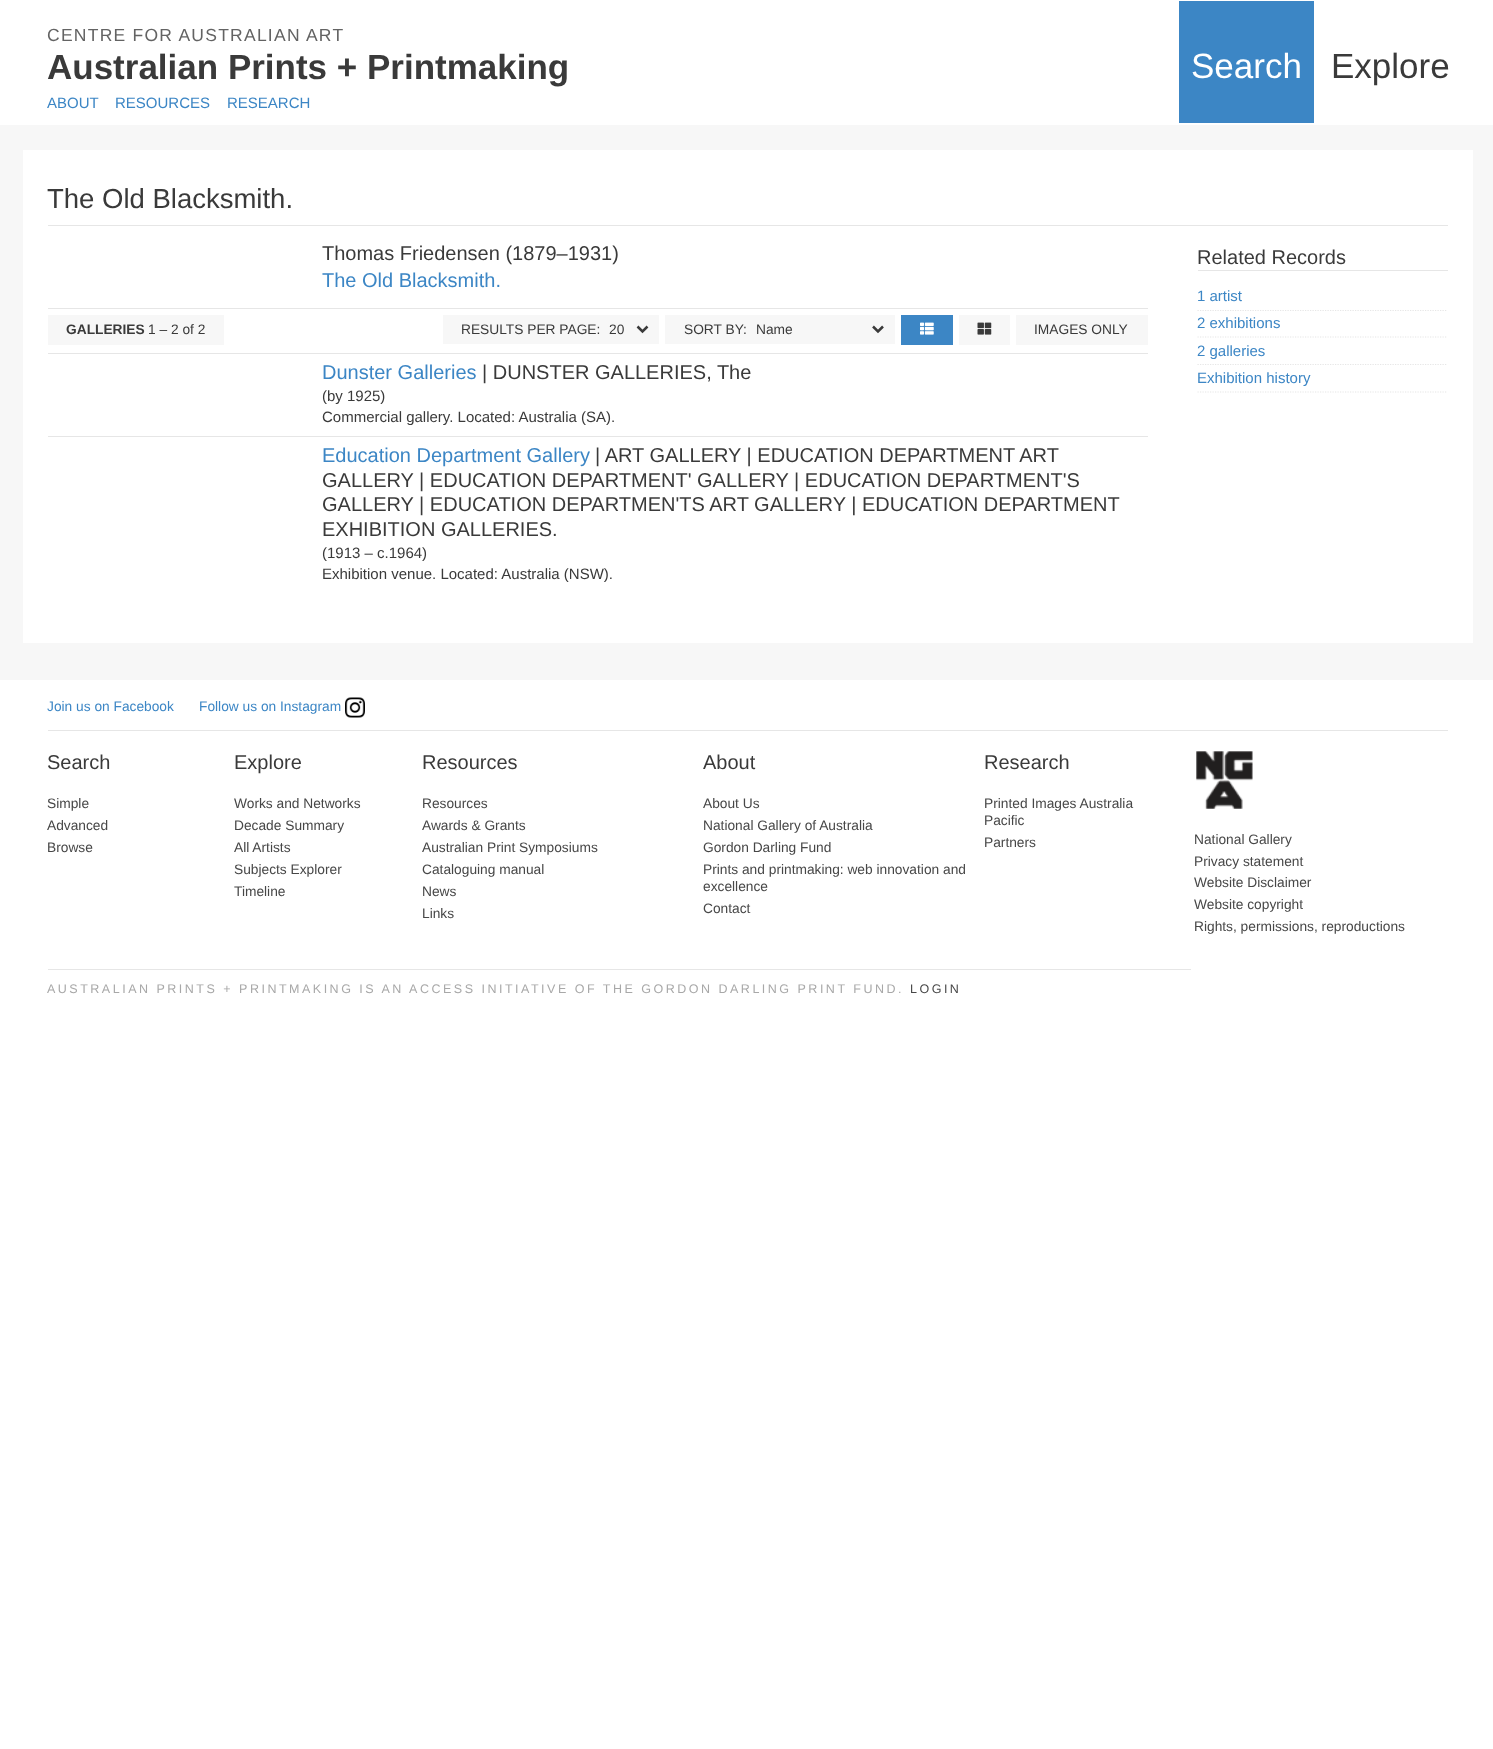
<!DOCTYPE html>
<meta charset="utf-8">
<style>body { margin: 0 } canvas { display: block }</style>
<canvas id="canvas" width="1493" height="1749"></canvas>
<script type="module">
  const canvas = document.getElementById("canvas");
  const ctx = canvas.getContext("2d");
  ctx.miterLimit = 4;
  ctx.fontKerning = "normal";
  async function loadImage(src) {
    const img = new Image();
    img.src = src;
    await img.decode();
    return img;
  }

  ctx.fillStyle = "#ffffff";
  ctx.fillRect(0, 0, 1493, 1749);
  ctx.fillStyle = "#f7f7f7";
  ctx.fillRect(0, 125, 1493, 555);
  ctx.letterSpacing = "1.25px";
  ctx.font = "17.5px Liberation Sans";
  ctx.fillStyle = "#636363";
  ctx.fillText("CENTRE FOR AUSTRALIAN ART", 47, 41);
  ctx.letterSpacing = "0px";
  ctx.font = "bold 35px Liberation Sans";
  ctx.fillStyle = "#3a3a3a";
  ctx.fillText("Australian Prints + Printmaking", 47, 79);
  ctx.fillStyle = "#3c86c5";
  ctx.fillRect(1179, 1, 135, 122);
  ctx.font = "35px Liberation Sans";
  ctx.fillStyle = "#ffffff";
  ctx.fillText("Search", 1191, 78);
  ctx.fillStyle = "#3a3a3a";
  ctx.fillText("Explore", 1331, 78);
  ctx.font = "15px Liberation Sans";
  ctx.fillStyle = "#3c86c5";
  ctx.fillText("ABOUT", 47, 108);
  ctx.fillText("RESOURCES", 115, 108);
  ctx.fillText("RESEARCH", 227, 108);
  ctx.fillStyle = "#ffffff";
  ctx.fillRect(23, 150, 1450, 493);
  ctx.fillStyle = "#e6e6e6";
  ctx.fillRect(48, 225, 1400, 1);
  ctx.font = "27.5px Liberation Sans";
  ctx.fillStyle = "#3a3a3a";
  ctx.fillText("The Old Blacksmith.", 47, 208);
  ctx.fillStyle = "#e6e6e6";
  ctx.fillRect(48, 308, 1100, 1);
  ctx.font = "20px Liberation Sans";
  ctx.fillStyle = "#3a3a3a";
  ctx.fillText("Thomas Friedensen (1879–1931)", 322, 260);
  ctx.fillStyle = "#3c86c5";
  ctx.fillText("The Old Blacksmith.", 322, 287);
  ctx.fillStyle = "#e6e6e6";
  ctx.fillRect(48, 353, 1100, 1);
  ctx.fillStyle = "#f7f7f7";
  ctx.fillRect(48, 315, 176, 30);
  ctx.font = "bold 13.75px Liberation Sans";
  ctx.fillStyle = "#3a3a3a";
  ctx.fillText("GALLERIES", 66, 334);
  ctx.font = "13.75px Liberation Sans";
  ctx.fillText("1 – 2 of 2", 148, 334);
  ctx.fillStyle = "#f7f7f7";
  ctx.fillRect(443, 315, 216, 29);
  ctx.fillStyle = "#3a3a3a";
  ctx.fillText("RESULTS PER PAGE:", 461, 334);
  ctx.beginPath();
  ctx.moveTo(637.5, 326.5);
  ctx.lineTo(642.5, 331.5);
  ctx.lineTo(647.5, 326.5);
  ctx.strokeStyle = "#3a3a3a";
  ctx.lineWidth = 2.5;
  ctx.stroke();
  ctx.fillText("20", 609, 334);
  ctx.fillStyle = "#f7f7f7";
  ctx.fillRect(665, 315, 230, 29);
  ctx.fillStyle = "#3a3a3a";
  ctx.fillText("SORT BY:", 684, 334);
  ctx.beginPath();
  ctx.moveTo(873, 326.5);
  ctx.lineTo(878, 331.5);
  ctx.lineTo(883, 326.5);
  ctx.stroke();
  ctx.fillText("Name", 756, 334);
  ctx.fillStyle = "#3c86c5";
  ctx.fillRect(901, 315, 52, 30);
  ctx.drawImage(await loadImage("img1.png"), 920, 322, 14, 13);
  ctx.fillStyle = "#f7f7f7";
  ctx.fillRect(959, 315, 51, 30);
  ctx.drawImage(await loadImage("img2.png"), 977, 322, 15, 13);
  ctx.fillRect(1016, 315, 132, 30);
  ctx.fillStyle = "#3a3a3a";
  ctx.fillText("IMAGES ONLY", 1034, 334);
  ctx.fillStyle = "#e6e6e6";
  ctx.fillRect(48, 436, 1100, 1);
  ctx.font = "20px Liberation Sans";
  ctx.fillStyle = "#3c86c5";
  ctx.fillText("Dunster Galleries", 322, 379);
  ctx.fillStyle = "#3a3a3a";
  ctx.fillText("| DUNSTER GALLERIES, The", 482, 379);
  ctx.font = "15px Liberation Sans";
  ctx.fillText("(by 1925)", 322, 401);
  ctx.fillText("Commercial gallery. Located: Australia (SA).", 322, 422);
  ctx.font = "20px Liberation Sans";
  ctx.fillStyle = "#3c86c5";
  ctx.fillText("Education Department Gallery", 322, 462);
  ctx.fillStyle = "#3a3a3a";
  ctx.fillText("| ART GALLERY | EDUCATION DEPARTMENT ART", 595, 462);
  ctx.fillText("GALLERY | EDUCATION DEPARTMENT' GALLERY | EDUCATION DEPARTMENT'S", 322, 487);
  ctx.fillText("GALLERY | EDUCATION DEPARTMEN'TS ART GALLERY | EDUCATION DEPARTMENT", 322, 511);
  ctx.fillText("EXHIBITION GALLERIES.", 322, 536);
  ctx.font = "15px Liberation Sans";
  ctx.fillText("(1913 – c.1964)", 322, 558);
  ctx.fillText("Exhibition venue. Located: Australia (NSW).", 322, 579);
  ctx.fillStyle = "#e6e6e6";
  ctx.fillRect(1198, 270, 250, 1);
  ctx.font = "20px Liberation Sans";
  ctx.fillStyle = "#3a3a3a";
  ctx.fillText("Related Records", 1197, 264);
  ctx.beginPath();
  ctx.moveTo(1197.5, 310.5);
  ctx.lineTo(1447.5, 310.5);
  ctx.strokeStyle = "#e6e6e6";
  ctx.lineWidth = 1.2;
  ctx.setLineDash([1.25, 1.25]);
  ctx.stroke();
  ctx.font = "15px Liberation Sans";
  ctx.fillStyle = "#3c86c5";
  ctx.fillText("1 artist", 1197, 301);
  ctx.beginPath();
  ctx.moveTo(1197.5, 337);
  ctx.lineTo(1447.5, 337);
  ctx.stroke();
  ctx.fillText("2 exhibitions", 1197, 328);
  ctx.beginPath();
  ctx.moveTo(1197.5, 364.5);
  ctx.lineTo(1447.5, 364.5);
  ctx.stroke();
  ctx.fillText("2 galleries", 1197, 356);
  ctx.beginPath();
  ctx.moveTo(1197.5, 392);
  ctx.lineTo(1447.5, 392);
  ctx.stroke();
  ctx.fillText("Exhibition history", 1197, 383);
  ctx.fillStyle = "#e6e6e6";
  ctx.fillRect(48, 730, 1400, 1);
  ctx.font = "13.75px Liberation Sans";
  ctx.fillStyle = "#3c86c5";
  ctx.fillText("Join us on Facebook", 47, 711);
  ctx.fillText("Follow us on Instagram", 199, 711);
  ctx.drawImage(await loadImage("img3.png"), 345, 697, 20, 21);
  ctx.fillStyle = "#e6e6e6";
  ctx.fillRect(48, 969, 1143, 1);
  ctx.font = "20px Liberation Sans";
  ctx.fillStyle = "#3a3a3a";
  ctx.fillText("Search", 47, 769);
  ctx.font = "13.75px Liberation Sans";
  ctx.fillStyle = "#474747";
  ctx.fillText("Simple", 47, 808);
  ctx.fillText("Advanced", 47, 830);
  ctx.fillText("Browse", 47, 852);
  ctx.font = "20px Liberation Sans";
  ctx.fillStyle = "#3a3a3a";
  ctx.fillText("Explore", 234, 769);
  ctx.font = "13.75px Liberation Sans";
  ctx.fillStyle = "#474747";
  ctx.fillText("Works and Networks", 234, 808);
  ctx.fillText("Decade Summary", 234, 830);
  ctx.fillText("All Artists", 234, 852);
  ctx.fillText("Subjects Explorer", 234, 874);
  ctx.fillText("Timeline", 234, 896);
  ctx.font = "20px Liberation Sans";
  ctx.fillStyle = "#3a3a3a";
  ctx.fillText("Resources", 422, 769);
  ctx.font = "13.75px Liberation Sans";
  ctx.fillStyle = "#474747";
  ctx.fillText("Resources", 422, 808);
  ctx.fillText("Awards & Grants", 422, 830);
  ctx.fillText("Australian Print Symposiums", 422, 852);
  ctx.fillText("Cataloguing manual", 422, 874);
  ctx.fillText("News", 422, 896);
  ctx.fillText("Links", 422, 918);
  ctx.font = "20px Liberation Sans";
  ctx.fillStyle = "#3a3a3a";
  ctx.fillText("About", 703, 769);
  ctx.font = "13.75px Liberation Sans";
  ctx.fillStyle = "#474747";
  ctx.fillText("About Us", 703, 808);
  ctx.fillText("National Gallery of Australia", 703, 830);
  ctx.fillText("Gordon Darling Fund", 703, 852);
  ctx.fillText("Prints and printmaking: web innovation and", 703, 874);
  ctx.fillText("excellence", 703, 891);
  ctx.fillText("Contact", 703, 913);
  ctx.font = "20px Liberation Sans";
  ctx.fillStyle = "#3a3a3a";
  ctx.fillText("Research", 984, 769);
  ctx.font = "13.75px Liberation Sans";
  ctx.fillStyle = "#474747";
  ctx.fillText("Printed Images Australia", 984, 808);
  ctx.fillText("Pacific", 984, 825);
  ctx.fillText("Partners", 984, 847);
  ctx.drawImage(await loadImage("img4.png"), 1196, 751, 57, 58);
  ctx.fillText("National Gallery", 1194, 844);
  ctx.fillText("Privacy statement", 1194, 866);
  ctx.fillText("Website Disclaimer", 1194, 887);
  ctx.fillText("Website copyright", 1194, 909);
  ctx.fillText("Rights, permissions, reproductions", 1194, 931);
  ctx.letterSpacing = "2.5px";
  ctx.font = "12.5px Liberation Sans";
  ctx.fillStyle = "#a8a8a8";
  ctx.fillText("AUSTRALIAN PRINTS + PRINTMAKING IS AN ACCESS INITIATIVE OF THE GORDON DARLING PRINT FUND.", 47, 993);
  ctx.fillStyle = "#474747";
  ctx.fillText("LOGIN", 910, 993);
</script>
